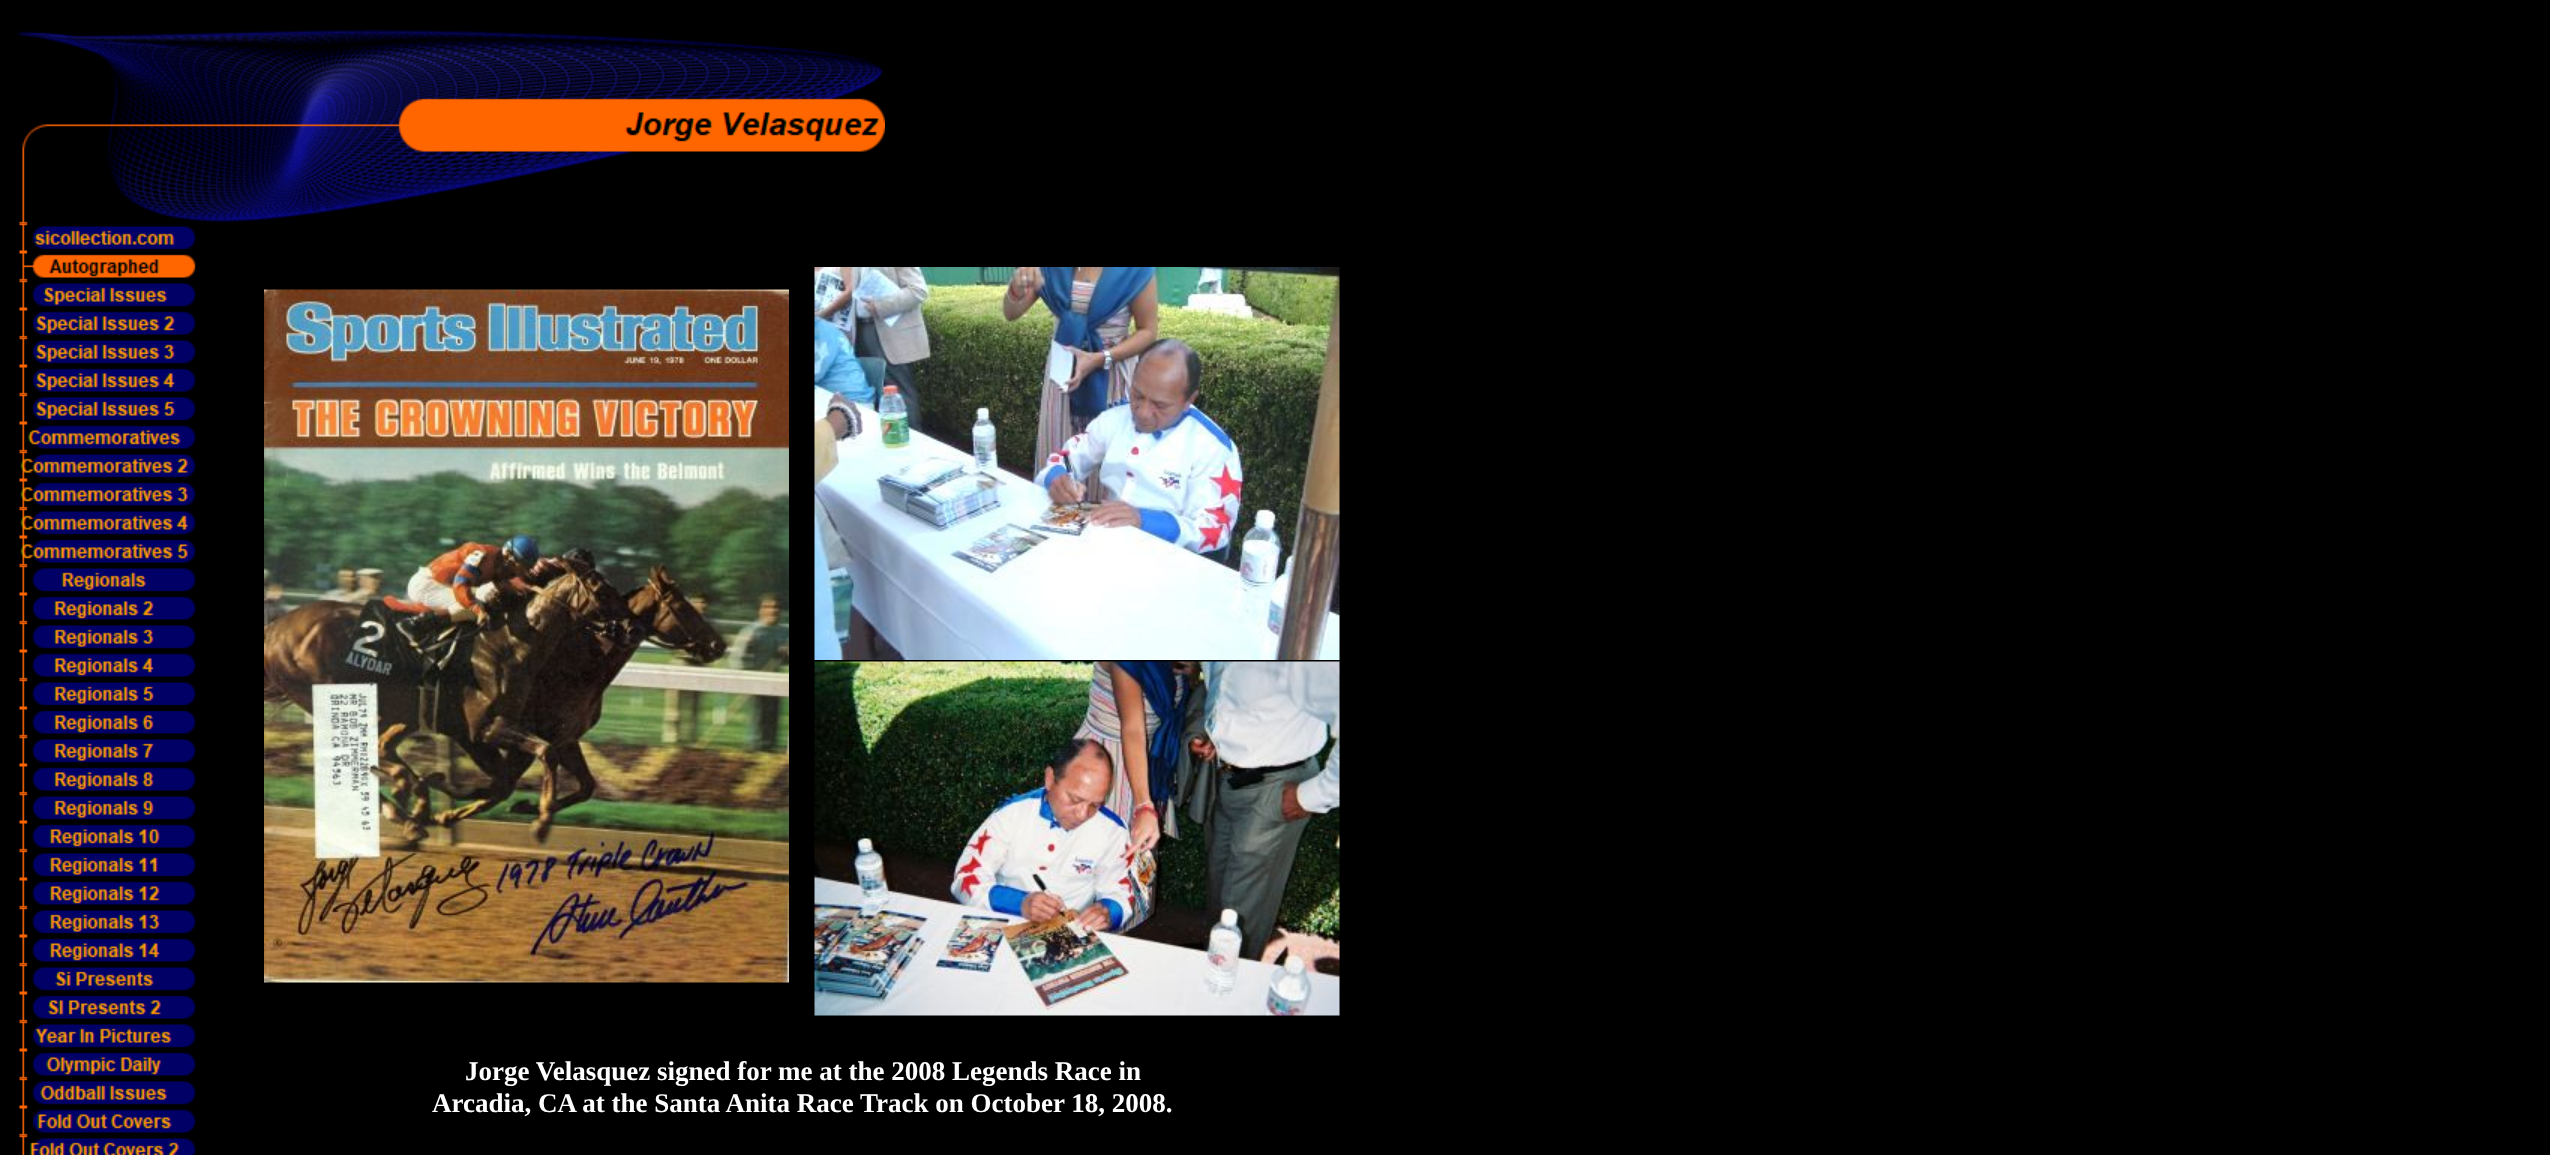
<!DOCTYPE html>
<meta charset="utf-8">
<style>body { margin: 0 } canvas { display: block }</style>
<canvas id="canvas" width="2550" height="1155"></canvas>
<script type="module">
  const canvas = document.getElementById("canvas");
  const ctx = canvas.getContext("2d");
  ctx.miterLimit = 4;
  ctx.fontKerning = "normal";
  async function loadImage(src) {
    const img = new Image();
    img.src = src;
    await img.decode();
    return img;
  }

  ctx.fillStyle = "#000000";
  ctx.fillRect(0, 0, 2550, 1155);
  ctx.drawImage(await loadImage("img1.png"), 18, 29, 867, 195);
  ctx.drawImage(await loadImage("img2.png"), 19, 223, 177, 29);
  ctx.drawImage(await loadImage("img3.png"), 19, 252, 177, 29);
  ctx.drawImage(await loadImage("img4.png"), 19, 280, 177, 29);
  ctx.drawImage(await loadImage("img5.png"), 19, 309, 177, 29);
  ctx.drawImage(await loadImage("img6.png"), 19, 337, 177, 29);
  ctx.drawImage(await loadImage("img7.png"), 19, 366, 177, 29);
  ctx.drawImage(await loadImage("img8.png"), 19, 394, 177, 29);
  ctx.drawImage(await loadImage("img9.png"), 19, 423, 177, 29);
  ctx.drawImage(await loadImage("img10.png"), 19, 451, 177, 29);
  ctx.drawImage(await loadImage("img11.png"), 19, 480, 177, 29);
  ctx.drawImage(await loadImage("img12.png"), 19, 508, 177, 29);
  ctx.drawImage(await loadImage("img13.png"), 19, 537, 177, 29);
  ctx.drawImage(await loadImage("img14.png"), 19, 565, 177, 29);
  ctx.drawImage(await loadImage("img15.png"), 19, 594, 177, 29);
  ctx.drawImage(await loadImage("img16.png"), 19, 622, 177, 29);
  ctx.drawImage(await loadImage("img17.png"), 19, 651, 177, 29);
  ctx.drawImage(await loadImage("img18.png"), 19, 679, 177, 29);
  ctx.drawImage(await loadImage("img19.png"), 19, 708, 177, 29);
  ctx.drawImage(await loadImage("img20.png"), 19, 736, 177, 29);
  ctx.drawImage(await loadImage("img21.png"), 19, 765, 177, 29);
  ctx.drawImage(await loadImage("img22.png"), 19, 793, 177, 29);
  ctx.drawImage(await loadImage("img23.png"), 19, 822, 177, 29);
  ctx.drawImage(await loadImage("img24.png"), 19, 850, 177, 29);
  ctx.drawImage(await loadImage("img25.png"), 19, 879, 177, 29);
  ctx.drawImage(await loadImage("img26.png"), 19, 907, 177, 29);
  ctx.drawImage(await loadImage("img27.png"), 19, 936, 177, 29);
  ctx.drawImage(await loadImage("img28.png"), 19, 964, 177, 29);
  ctx.drawImage(await loadImage("img29.png"), 19, 993, 177, 29);
  ctx.drawImage(await loadImage("img30.png"), 19, 1021, 177, 29);
  ctx.drawImage(await loadImage("img31.png"), 19, 1050, 177, 29);
  ctx.drawImage(await loadImage("img32.png"), 19, 1078, 177, 29);
  ctx.drawImage(await loadImage("img33.png"), 19, 1107, 177, 29);
  ctx.drawImage(await loadImage("img34.png"), 19, 1135, 177, 20);
  ctx.drawImage(await loadImage("img35.png"), 264, 289, 525, 694);
  ctx.drawImage(await loadImage("img36.png"), 814, 267, 526, 393);
  ctx.drawImage(await loadImage("img37.png"), 814, 661, 526, 355);
  ctx.font = "bold 27px Liberation Serif";
  ctx.fillStyle = "#ffffff";
  ctx.fillText("Jorge Velasquez signed for me at the 2008 Legends Race in", 465, 1080);
  ctx.fillText("Arcadia, CA at the Santa Anita Race Track on October 18, 2008.", 432, 1112);
</script>
